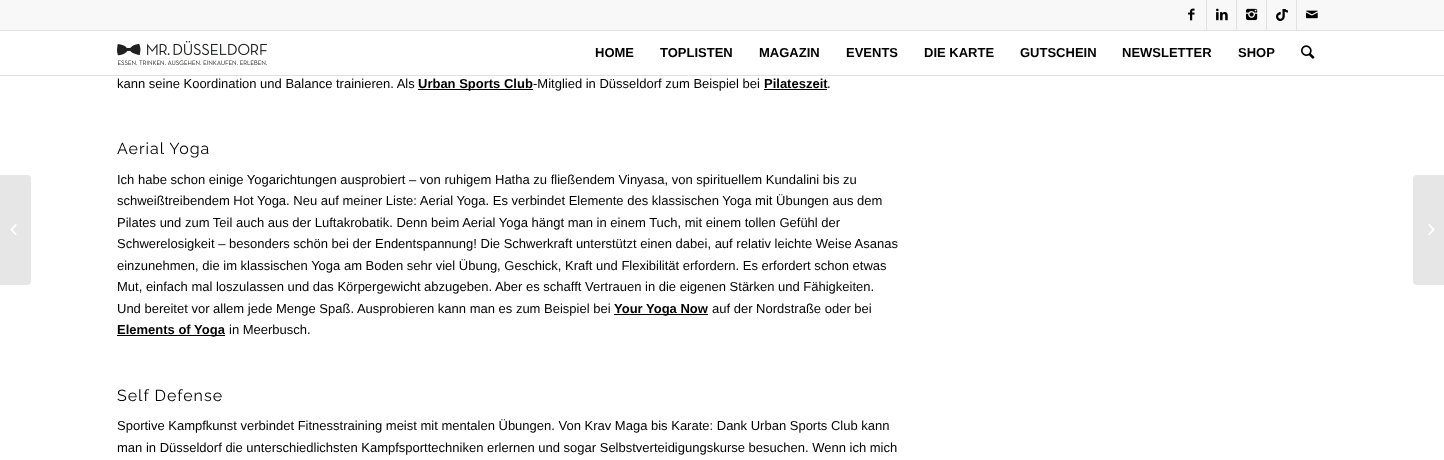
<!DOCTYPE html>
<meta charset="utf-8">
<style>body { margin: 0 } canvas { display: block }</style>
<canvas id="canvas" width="1444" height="460"></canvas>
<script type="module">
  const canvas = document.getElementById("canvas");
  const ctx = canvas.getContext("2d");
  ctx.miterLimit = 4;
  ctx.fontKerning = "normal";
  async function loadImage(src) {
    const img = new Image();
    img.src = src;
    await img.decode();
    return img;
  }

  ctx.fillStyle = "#ffffff";
  ctx.fillRect(0, 0, 1444, 460);
  ctx.fillStyle = "#f8f8f8";
  ctx.fillRect(0, 0, 1444, 30);
  ctx.fillStyle = "#e1e1e1";
  ctx.fillRect(0, 30, 1444, 1);
  ctx.fillRect(1206, 0, 1, 30);
  ctx.drawImage(await loadImage("img1.png"), 1188, 8, 7, 13);
  ctx.fillRect(1236, 0, 1, 30);
  ctx.drawImage(await loadImage("img2.png"), 1216, 8, 12, 13);
  ctx.fillRect(1266, 0, 1, 30);
  ctx.drawImage(await loadImage("img3.png"), 1246, 8, 12, 13);
  ctx.fillRect(1296, 0, 1, 30);
  ctx.drawImage(await loadImage("img4.png"), 1276, 9, 12, 12);
  ctx.drawImage(await loadImage("img5.png"), 1306, 10, 12, 9);
  ctx.fillRect(0, 75, 1444, 1);
  ctx.drawImage(await loadImage("img6.png"), 117, 41, 150, 24);
  ctx.font = "bold 13px Liberation Sans";
  ctx.fillStyle = "#000000";
  ctx.fillText("HOME", 595, 57);
  ctx.fillText("TOPLISTEN", 660, 57);
  ctx.fillText("MAGAZIN", 759, 57);
  ctx.fillText("EVENTS", 846, 57);
  ctx.fillText("DIE KARTE", 924, 57);
  ctx.fillText("GUTSCHEIN", 1020, 57);
  ctx.fillText("NEWSLETTER", 1122, 57);
  ctx.fillText("SHOP", 1238, 57);
  ctx.drawImage(await loadImage("img7.png"), 1301, 45, 14, 14);
  ctx.fillStyle = "#e6e6e6";
  ctx.beginPath();
  ctx.roundRect(0, 175, 31, 110, [0, 4, 4, 0]);
  ctx.fill();
  ctx.drawImage(await loadImage("img8.png"), 10, 224, 7, 11);
  ctx.font = "13px Liberation Sans";
  ctx.fillStyle = "#000000";
  ctx.fillText("kann seine Koordination und Balance trainieren. Als", 117, 88);
  ctx.fillRect(418, 89, 115, 1);
  ctx.font = "bold 13px Liberation Sans";
  ctx.fillText("Urban Sports Club", 418, 88);
  ctx.font = "13px Liberation Sans";
  ctx.fillText("-Mitglied in Düsseldorf zum Beispiel bei", 533, 88);
  ctx.font = "bold 13px Liberation Sans";
  ctx.fillText("Pilateszeit", 764, 88);
  ctx.fillRect(764, 89, 63, 1);
  ctx.font = "13px Liberation Sans";
  ctx.fillText(".", 827, 88);
  ctx.letterSpacing = "1px";
  ctx.font = "100 16px Raleway";
  ctx.fillText("Aerial Yoga", 117, 154);
  ctx.letterSpacing = "0px";
  ctx.font = "13px Liberation Sans";
  ctx.fillText("Ich habe schon einige Yogarichtungen ausprobiert – von ruhigem Hatha zu fließendem Vinyasa, von spirituellem Kundalini bis zu", 117, 184);
  ctx.fillText("schweißtreibendem Hot Yoga. Neu auf meiner Liste: Aerial Yoga. Es verbindet Elemente des klassischen Yoga mit Übungen aus dem", 117, 205);
  ctx.fillText("Pilates und zum Teil auch aus der Luftakrobatik. Denn beim Aerial Yoga hängt man in einem Tuch, mit einem tollen Gefühl der", 117, 227);
  ctx.fillText("Schwerelosigkeit – besonders schön bei der Endentspannung! Die Schwerkraft unterstützt einen dabei, auf relativ leichte Weise Asanas", 117, 248);
  ctx.fillText("einzunehmen, die im klassischen Yoga am Boden sehr viel Übung, Geschick, Kraft und Flexibilität erfordern. Es erfordert schon etwas", 117, 270);
  ctx.fillText("Mut, einfach mal loszulassen und das Körpergewicht abzugeben. Aber es schafft Vertrauen in die eigenen Stärken und Fähigkeiten.", 117, 291);
  ctx.fillText("Und bereitet vor allem jede Menge Spaß. Ausprobieren kann man es zum Beispiel bei", 117, 313);
  ctx.fillRect(614, 314, 94, 1);
  ctx.font = "bold 13px Liberation Sans";
  ctx.fillText("Your Yoga Now", 614, 313);
  ctx.font = "13px Liberation Sans";
  ctx.fillText("auf der Nordstraße oder bei", 712, 313);
  ctx.fillRect(117, 335, 108, 1);
  ctx.font = "bold 13px Liberation Sans";
  ctx.fillText("Elements of Yoga", 117, 334);
  ctx.font = "13px Liberation Sans";
  ctx.fillText("in Meerbusch.", 229, 334);
  ctx.letterSpacing = "1px";
  ctx.font = "100 16px Raleway";
  ctx.fillText("Self Defense", 117, 401);
  ctx.letterSpacing = "0px";
  ctx.font = "13px Liberation Sans";
  ctx.fillText("Sportive Kampfkunst verbindet Fitnesstraining meist mit mentalen Übungen. Von Krav Maga bis Karate: Dank Urban Sports Club kann", 117, 430);
  ctx.fillText("man in Düsseldorf die unterschiedlichsten Kampfsporttechniken erlernen und sogar Selbstverteidigungskurse besuchen. Wenn ich mich", 117, 452);
  ctx.fillStyle = "#e6e6e6";
  ctx.beginPath();
  ctx.roundRect(1413, 175, 31, 110, [4, 0, 0, 4]);
  ctx.fill();
  ctx.drawImage(await loadImage("img9.png"), 1428, 224, 7, 11);
</script>
